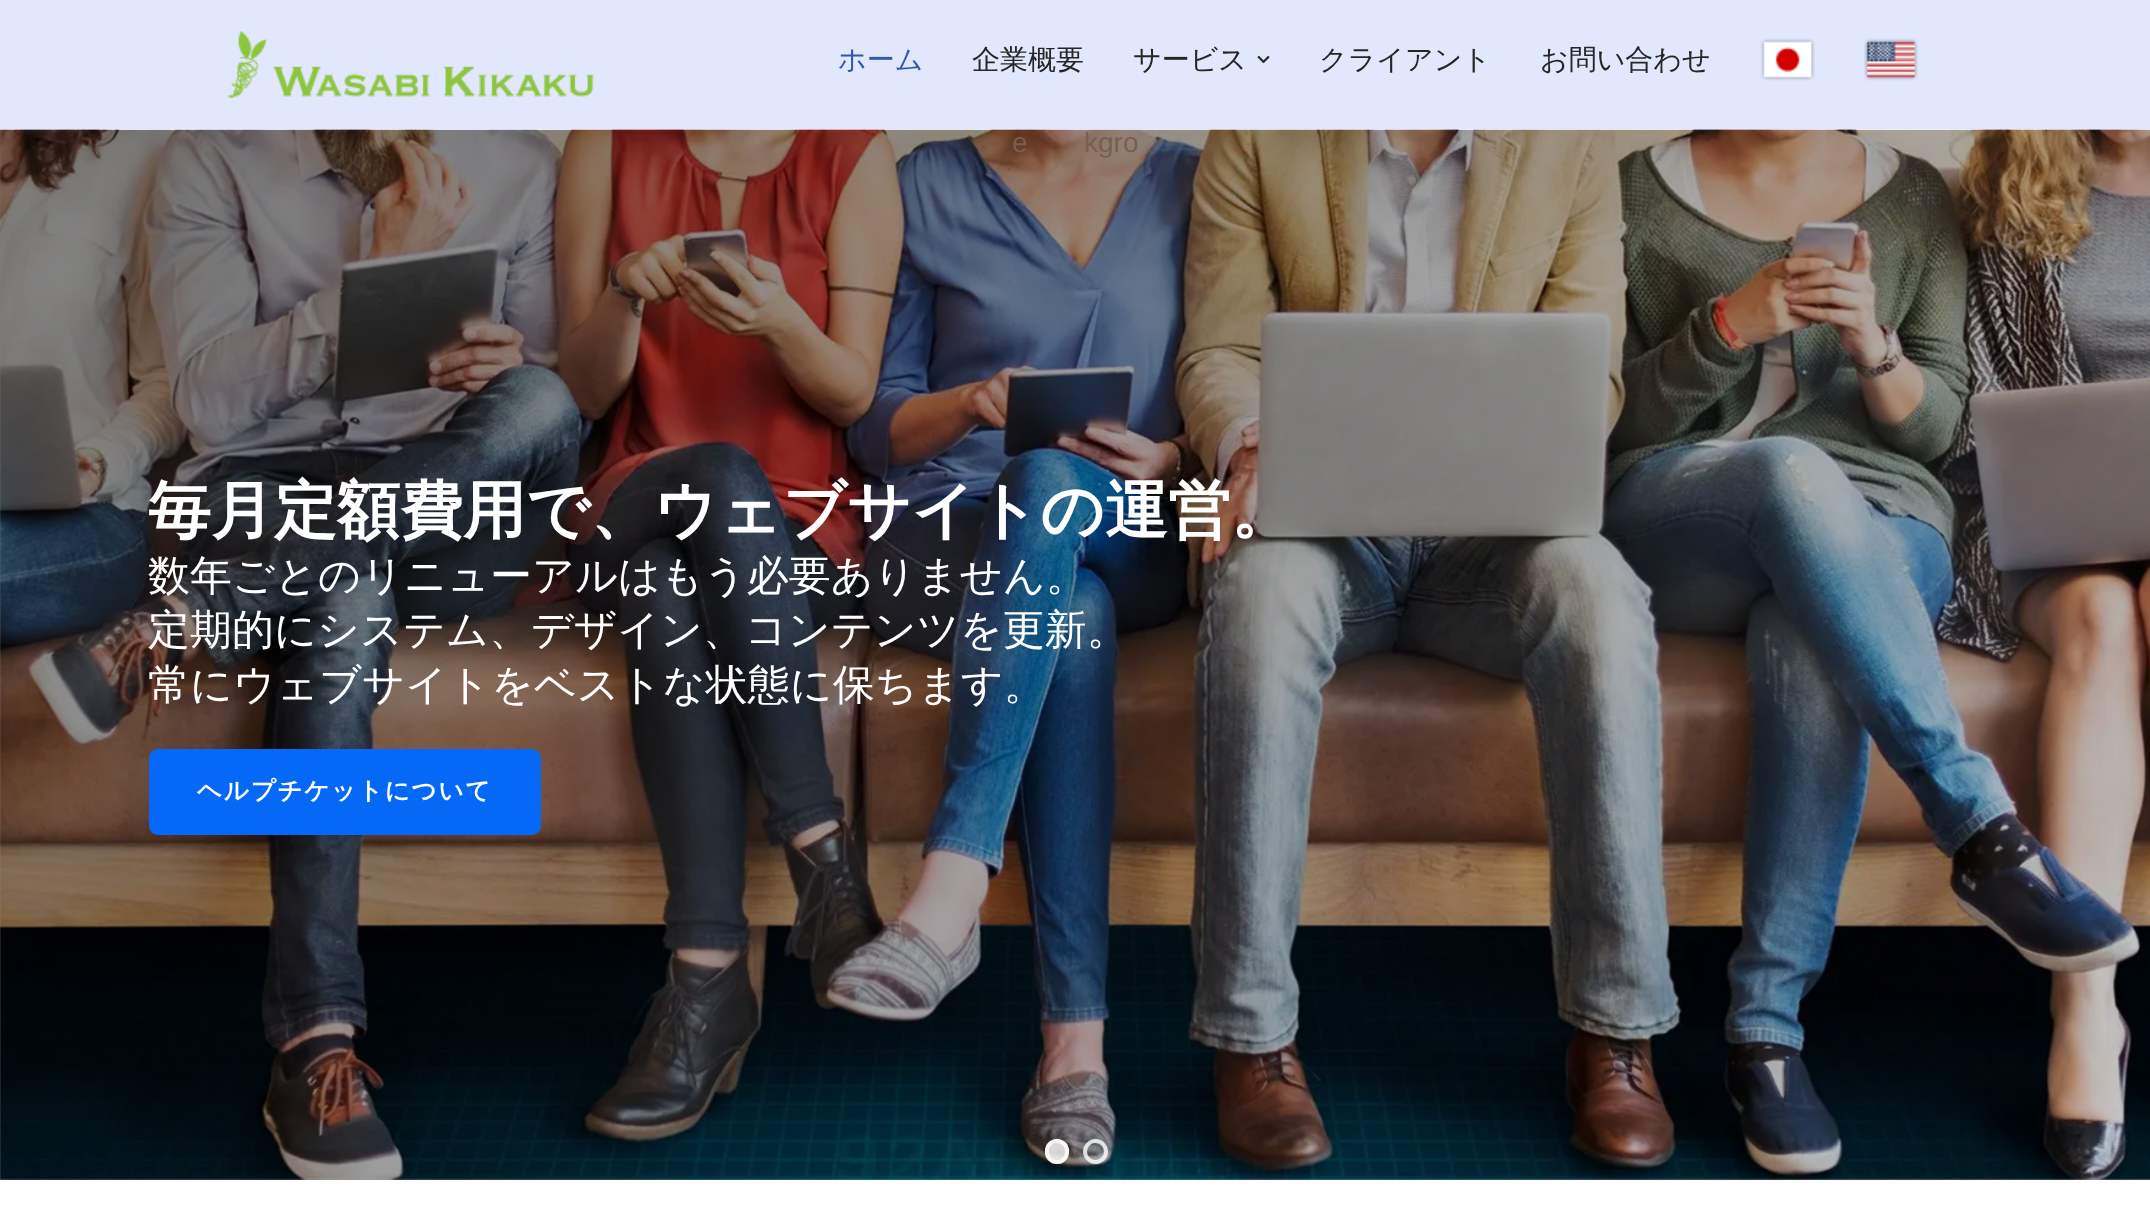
<!DOCTYPE html>
<meta charset="utf-8">
<style>body { margin: 0 } canvas { display: block }</style>
<canvas id="canvas" width="2150" height="1229"></canvas>
<script type="module">
  const canvas = document.getElementById("canvas");
  const ctx = canvas.getContext("2d");
  ctx.miterLimit = 4;
  ctx.fontKerning = "normal";
  async function loadImage(src) {
    const img = new Image();
    img.src = src;
    await img.decode();
    return img;
  }
  let gradient;

  ctx.fillStyle = "#ffffff";
  ctx.fillRect(0, 0, 2150, 1229);
  ctx.fillStyle = "#e1e7fd";
  ctx.fillRect(0, 0, 2150, 130);
  ctx.drawImage(await loadImage("img1.png"), 227, 31, 367, 67);
  ctx.font = "500 28px WenQuanYi Zen Hei";
  ctx.fillStyle = "#2f5aae";
  ctx.fillText("ホーム", 838, 69);
  ctx.fillStyle = "#272626";
  ctx.fillText("企業概要", 972, 69);
  ctx.fillText("サービス", 1133, 69);
  ctx.drawImage(await loadImage("img2.png"), 1257, 55, 13, 9);
  ctx.fillText("クライアント", 1319, 69);
  ctx.fillText("お問い合わせ", 1540, 69);
  ctx.drawImage(await loadImage("img3.png"), 1760, 38, 55, 43);
  ctx.drawImage(await loadImage("img4.png"), 1864, 38, 54, 43);
  ctx.drawImage(await loadImage("img5.png"), 0, 129, 2150, 1051);
  gradient = ctx.createLinearGradient(276, -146, 1877, 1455);
  gradient.addColorStop(0, "rgba(0, 0, 0, 0.51)");
  gradient.addColorStop(1, "rgba(0, 0, 0, 0.2)");
  ctx.fillStyle = gradient;
  ctx.fillRect(0, 130, 2150, 1050);
  ctx.font = "28px Liberation Sans";
  ctx.fillStyle = "#775f52";
  ctx.fillText("e", 1012, 152);
  ctx.fillText("kgro", 1084, 152);
  ctx.font = "bold 63px WenQuanYi Zen Hei";
  ctx.fillStyle = "#ffffff";
  ctx.fillText("毎月定額費用で、ウェブサイトの運営。", 148, 532);
  ctx.font = "500 42px WenQuanYi Zen Hei";
  ctx.fillText("数年ごとのリニューアルはもう必要ありません。", 148, 590);
  ctx.fillText("定期的にシステム、デザイン、コンテンツを更新。", 148, 644);
  ctx.fillText("常にウェブサイトをベストな状態に保ちます。", 148, 699);
  ctx.fillStyle = "#0568f6";
  ctx.beginPath();
  ctx.roundRect(149, 749, 392, 86, 9);
  ctx.fill();
  ctx.letterSpacing = "1.75px";
  ctx.font = "bold 24.5px WenQuanYi Zen Hei";
  ctx.fillStyle = "#ffffff";
  ctx.fillText("ヘルプチケットについて", 197, 799);
  ctx.fillStyle = "rgba(255, 255, 255, 0.8)";
  ctx.beginPath();
  ctx.roundRect(1045, 1139, 24, 25, 12);
  ctx.fill();
  ctx.beginPath();
  ctx.roundRect(1047, 1141, 20, 21, 10);
  ctx.strokeStyle = "rgba(255, 255, 255, 0.8)";
  ctx.lineWidth = 4;
  ctx.stroke();
  ctx.beginPath();
  ctx.arc(1095.5, 1151.5, 10.5, 0, Math.PI * 2);
  ctx.stroke();
</script>
